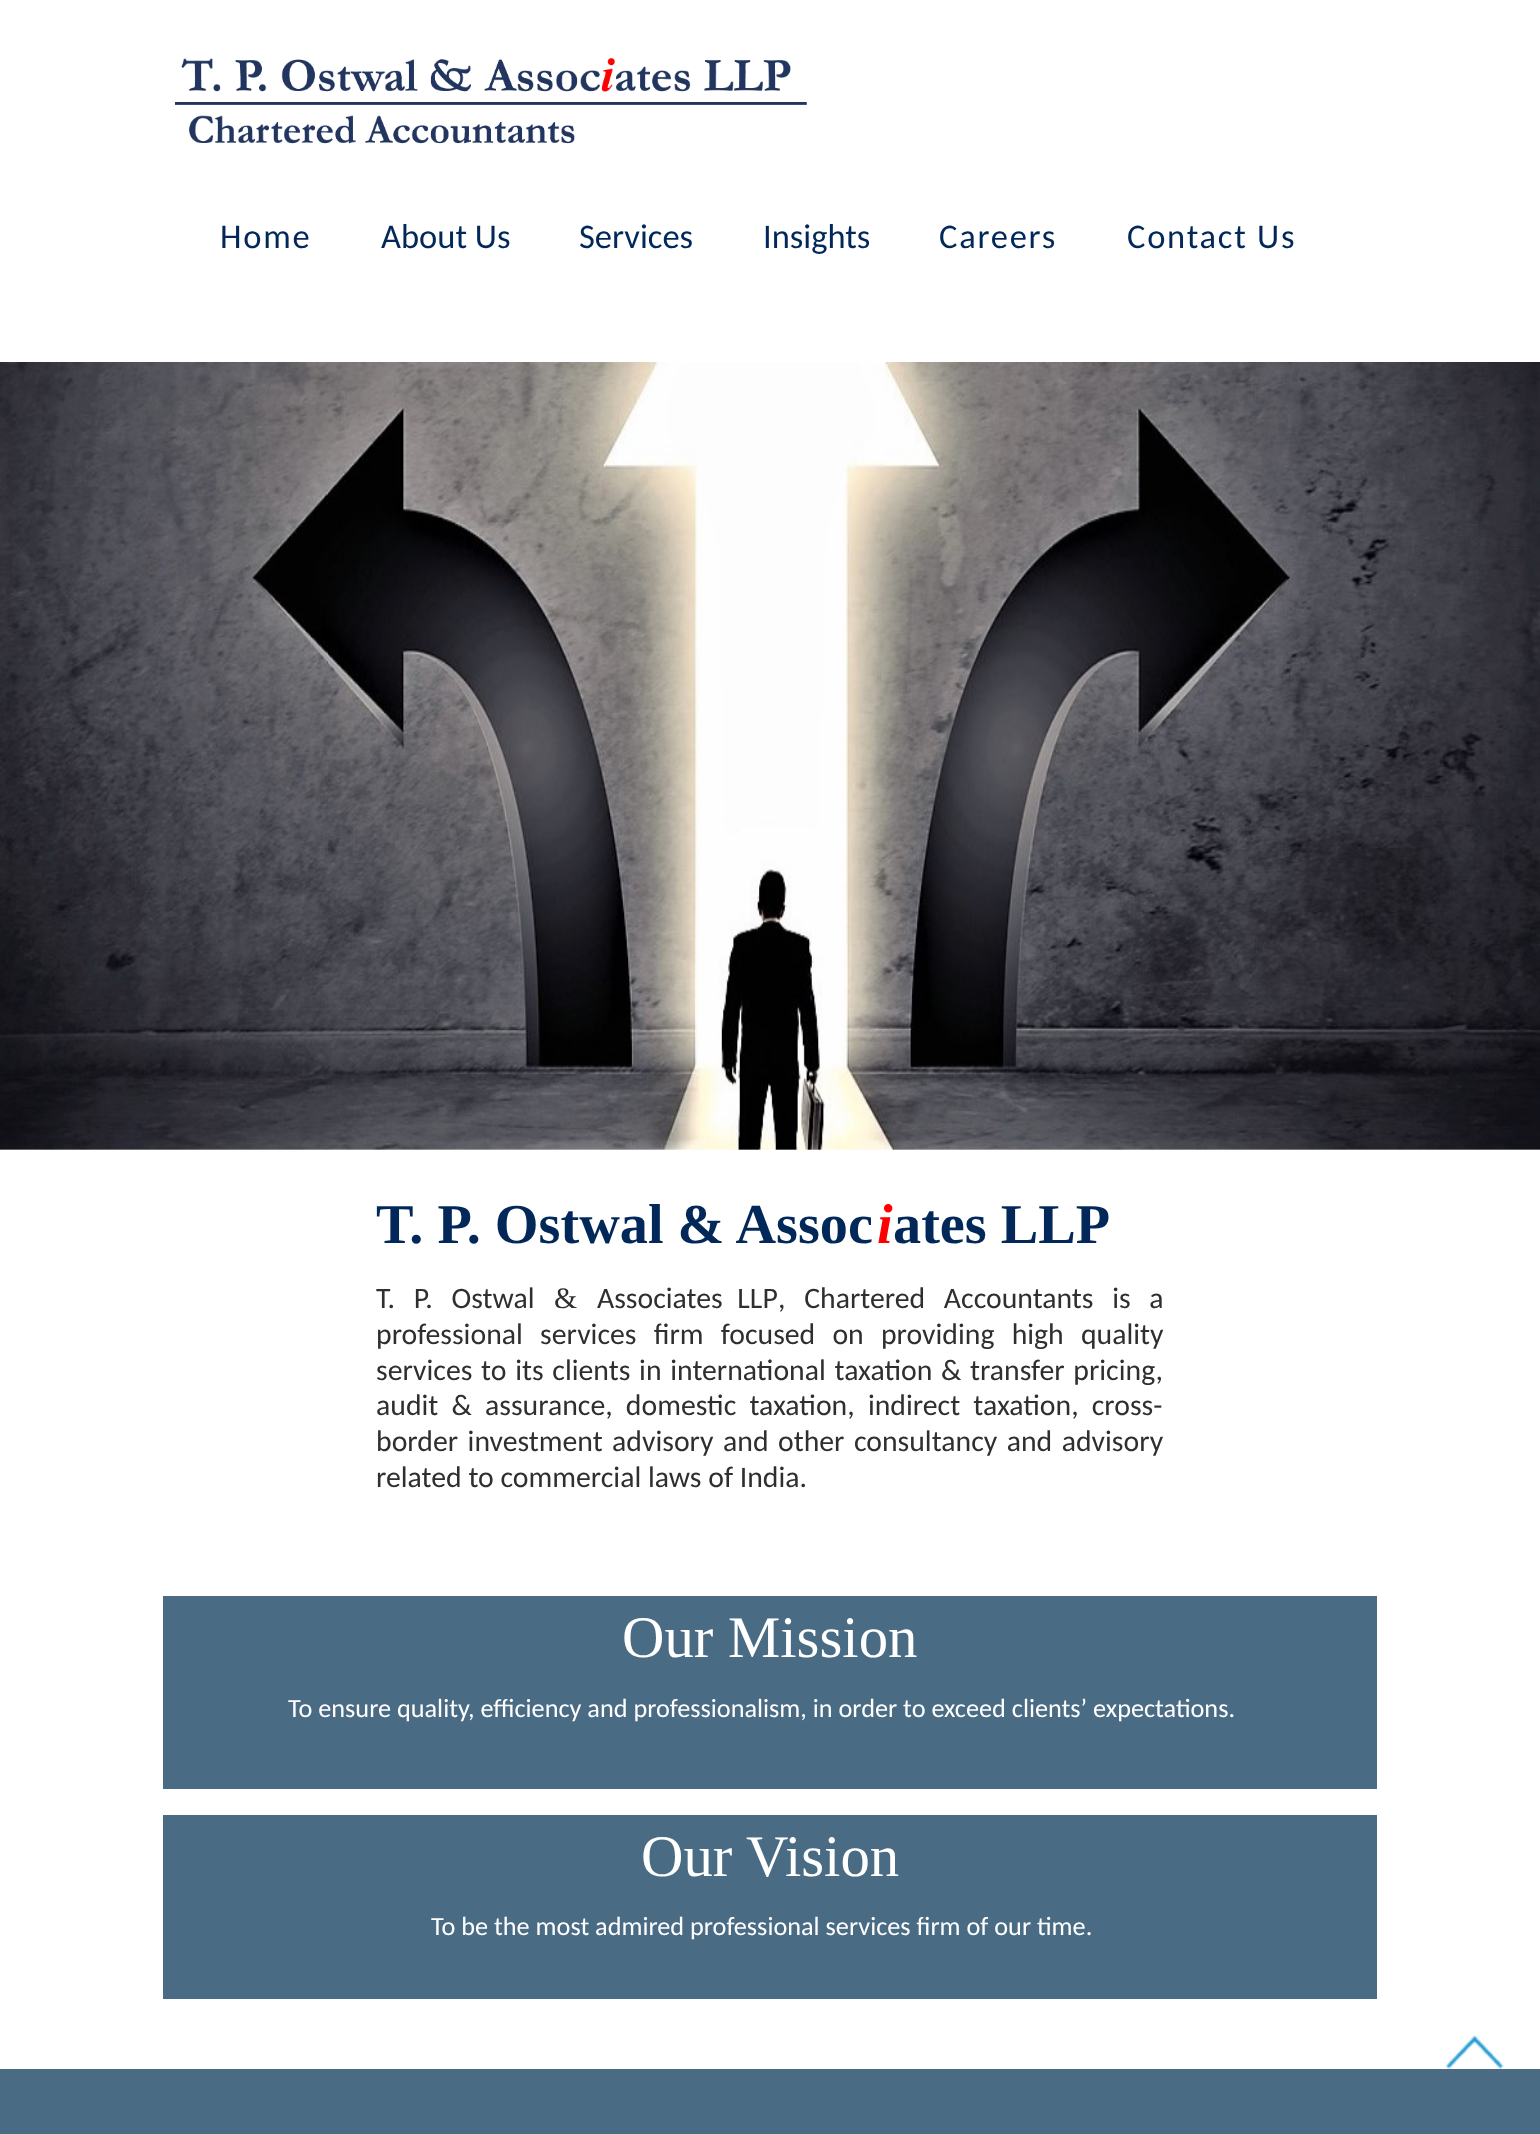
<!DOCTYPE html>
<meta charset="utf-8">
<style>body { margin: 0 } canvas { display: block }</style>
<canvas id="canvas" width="1540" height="2134"></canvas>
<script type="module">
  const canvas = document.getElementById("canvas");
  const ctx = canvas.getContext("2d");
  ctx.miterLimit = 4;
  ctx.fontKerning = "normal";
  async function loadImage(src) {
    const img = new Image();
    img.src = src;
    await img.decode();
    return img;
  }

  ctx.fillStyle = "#ffffff";
  ctx.fillRect(0, 0, 1540, 2134);
  ctx.drawImage(await loadImage("img1.png"), 175, 57, 632, 87);
  ctx.letterSpacing = "1.75px";
  ctx.font = "34.5px Carlito";
  ctx.fillStyle = "#022859";
  ctx.fillText("Home", 220, 248);
  ctx.letterSpacing = "0px";
  ctx.fillText("About Us", 381, 248);
  ctx.fillText("Services", 579, 248);
  ctx.fillText("Insights", 763, 248);
  ctx.letterSpacing = "1.75px";
  ctx.fillText("Careers", 939, 248);
  ctx.fillText("Contact Us", 1127, 248);
  ctx.drawImage(await loadImage("img2.png"), 0, 362, 1540, 788);
  ctx.letterSpacing = "0px";
  ctx.font = "bold 56.25px Liberation Serif";
  ctx.fillText("T. P. Ostwal & Assoc", 376, 1243);
  ctx.font = "italic bold 56.25px Liberation Serif";
  ctx.fillStyle = "#ff0000";
  ctx.fillText("i", 877, 1243);
  ctx.font = "bold 56.25px Liberation Serif";
  ctx.fillStyle = "#022859";
  ctx.fillText("ates LLP", 893, 1243);
  ctx.wordSpacing = "12px";
  ctx.font = "29.75px Carlito";
  ctx.fillStyle = "#2f2f2f";
  ctx.fillText("T. P. Ostwal", 376, 1308);
  ctx.wordSpacing = "0px";
  ctx.font = "29.75px Liberation Serif";
  ctx.fillText("&", 554, 1308);
  ctx.wordSpacing = "8px";
  ctx.font = "29.75px Carlito";
  ctx.fillText("Associates LLP", 597, 1308);
  ctx.wordSpacing = "12px";
  ctx.fillText(", Chartered Accountants is a", 778, 1308);
  ctx.wordSpacing = "10.5px";
  ctx.fillText("professional services firm focused on providing high quality", 376, 1344);
  ctx.wordSpacing = "2px";
  ctx.fillText("services to its clients in international taxation & transfer pricing,", 376, 1380);
  ctx.wordSpacing = "6.5px";
  ctx.fillText("audit & assurance, domestic taxation, indirect taxation, cross-", 376, 1415);
  ctx.wordSpacing = "2.75px";
  ctx.fillText("border investment advisory and other consultancy and advisory", 376, 1451);
  ctx.wordSpacing = "0px";
  ctx.fillText("related to commercial laws of India.", 376, 1487);
  ctx.fillStyle = "#4a6b84";
  ctx.fillRect(163, 1596, 1214, 193);
  ctx.font = "58.75px Liberation Serif";
  ctx.fillStyle = "#ffffff";
  ctx.fillText("Our Mission", 622, 1657);
  ctx.font = "26.25px Carlito";
  ctx.fillText("To ensure quality, efficiency and professionalism, in order to exceed clients’ expectations.", 288, 1717);
  ctx.fillStyle = "#4a6b84";
  ctx.fillRect(163, 1815, 1214, 184);
  ctx.font = "58.75px Liberation Serif";
  ctx.fillStyle = "#ffffff";
  ctx.fillText("Our Vision", 641, 1876);
  ctx.font = "26.25px Carlito";
  ctx.fillText("To be the most admired professional services firm of our time.", 431, 1935);
  ctx.drawImage(await loadImage("img3.png"), 1445, 2035, 59, 34);
  ctx.fillStyle = "#4a6b84";
  ctx.fillRect(0, 2069, 1540, 65);
</script>
